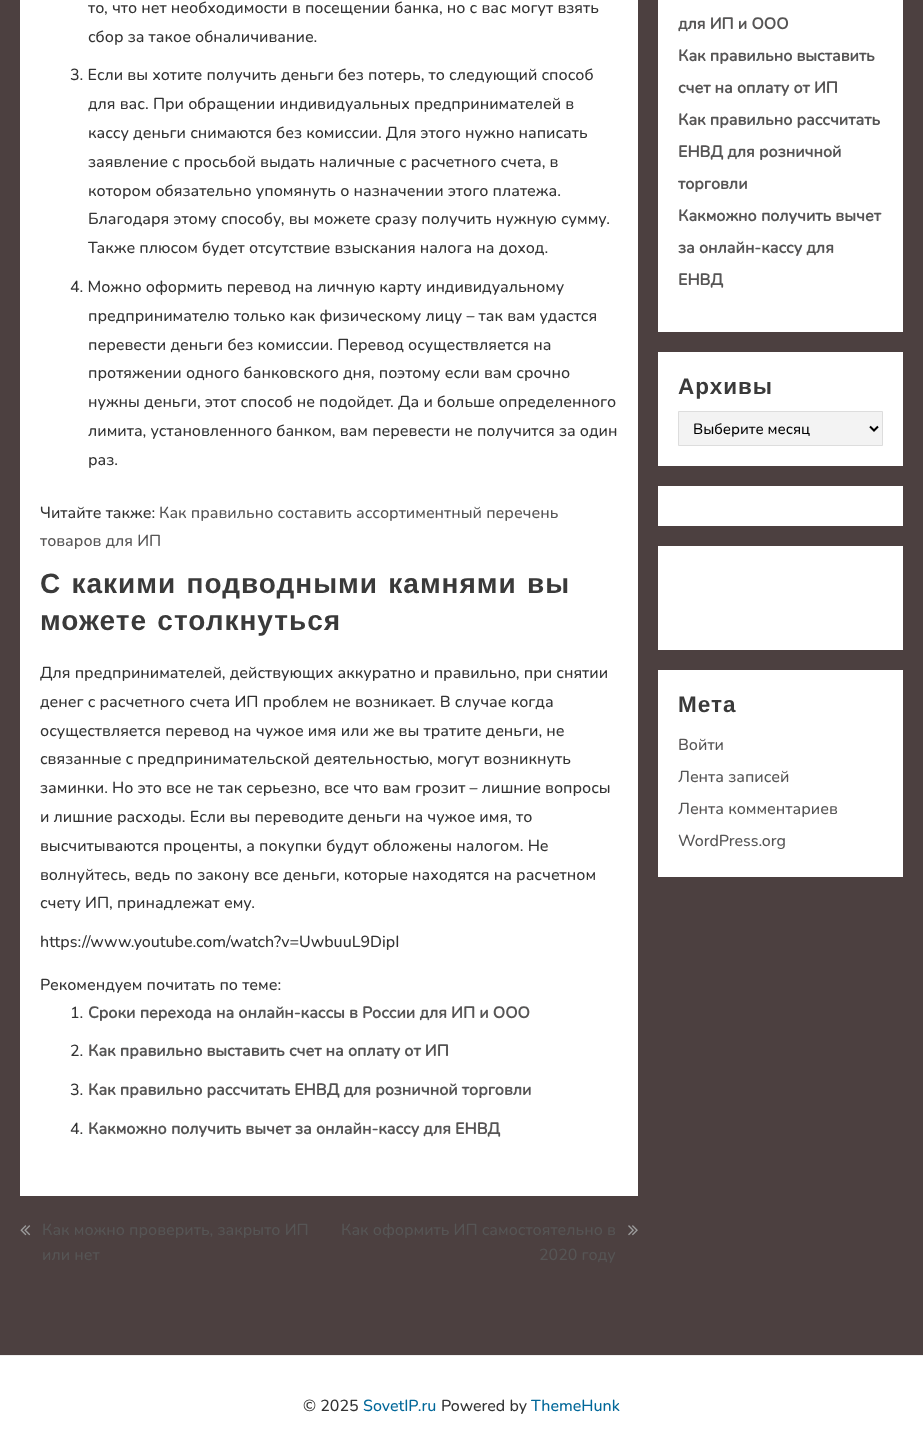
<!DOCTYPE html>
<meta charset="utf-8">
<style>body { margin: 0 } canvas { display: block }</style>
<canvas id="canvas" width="923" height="1456"></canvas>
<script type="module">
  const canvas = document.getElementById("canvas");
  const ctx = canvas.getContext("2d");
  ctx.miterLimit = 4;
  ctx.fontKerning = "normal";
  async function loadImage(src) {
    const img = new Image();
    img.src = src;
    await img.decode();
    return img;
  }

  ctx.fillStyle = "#4c4040";
  ctx.fillRect(0, 0, 923, 1456);
  ctx.fillStyle = "#ffffff";
  ctx.fillRect(20, 0, 618, 1196);
  ctx.font = "500 16px Nunito";
  ctx.fillStyle = "#333333";
  ctx.fillText("то, что нет необходимости в посещении банка, но с вас могут взять", 88, 13);
  ctx.fillText("сбор за такое обналичивание.", 88, 42);
  ctx.fillText("3. Если вы хотите получить деньги без потерь, то следующий способ", 70, 80);
  ctx.fillText("для вас. При обращении индивидуальных предпринимателей в", 88, 109);
  ctx.fillText("кассу деньги снимаются без комиссии. Для этого нужно написать", 88, 138);
  ctx.fillText("заявление с просьбой выдать наличные с расчетного счета, в", 88, 167);
  ctx.fillText("котором обязательно упомянуть о назначении этого платежа.", 88, 196);
  ctx.fillText("Благодаря этому способу, вы можете сразу получить нужную сумму.", 88, 224);
  ctx.fillText("Также плюсом будет отсутствие взыскания налога на доход.", 88, 253);
  ctx.fillText("4. Можно оформить перевод на личную карту индивидуальному", 70, 292);
  ctx.fillText("предпринимателю только как физическому лицу – так вам удастся", 88, 321);
  ctx.fillText("перевести деньги без комиссии. Перевод осуществляется на", 88, 350);
  ctx.fillText("протяжении одного банковского дня, поэтому если вам срочно", 88, 378);
  ctx.fillText("нужны деньги, этот способ не подойдет. Да и больше определенного", 88, 407);
  ctx.fillText("лимита, установленного банком, вам перевести не получится за один", 88, 436);
  ctx.fillText("раз.", 88, 465);
  ctx.fillText("Читайте также:", 40, 518);
  ctx.fillStyle = "#565555";
  ctx.fillText("Как правильно составить ассортиментный перечень", 159, 518);
  ctx.fillText("товаров для ИП", 40, 546);
  ctx.letterSpacing = "1px";
  ctx.wordSpacing = "1.5px";
  ctx.font = "bold 28px Liberation Sans";
  ctx.fillStyle = "#3a3a3a";
  ctx.fillText("С какими подводными камнями вы", 40, 593);
  ctx.fillText("можете столкнуться", 40, 630);
  ctx.letterSpacing = "0px";
  ctx.wordSpacing = "0px";
  ctx.font = "500 16px Nunito";
  ctx.fillStyle = "#333333";
  ctx.fillText("Для предпринимателей, действующих аккуратно и правильно, при снятии", 40, 678);
  ctx.fillText("денег с расчетного счета ИП проблем не возникает. В случае когда", 40, 707);
  ctx.fillText("осуществляется перевод на чужое имя или же вы тратите деньги, не", 40, 736);
  ctx.fillText("связанные с предпринимательской деятельностью, могут возникнуть", 40, 764);
  ctx.fillText("заминки. Но это все не так серьезно, все что вам грозит – лишние вопросы", 40, 793);
  ctx.fillText("и лишние расходы. Если вы переводите деньги на чужое имя, то", 40, 822);
  ctx.fillText("высчитываются проценты, а покупки будут обложены налогом. Не", 40, 851);
  ctx.fillText("волнуйтесь, ведь по закону все деньги, которые находятся на расчетном", 40, 880);
  ctx.fillText("счету ИП, принадлежат ему.", 40, 908);
  ctx.fillText("https://www.youtube.com/watch?v=UwbuuL9DipI", 40, 947);
  ctx.fillText("Рекомендуем почитать по теме:", 40, 990);
  ctx.fillText("1.", 70, 1018);
  ctx.font = "bold 16px Nunito";
  ctx.fillStyle = "#565555";
  ctx.fillText("Сроки перехода на онлайн-кассы в России для ИП и ООО", 88, 1018);
  ctx.font = "500 16px Nunito";
  ctx.fillStyle = "#333333";
  ctx.fillText("2.", 70, 1056);
  ctx.font = "bold 16px Nunito";
  ctx.fillStyle = "#565555";
  ctx.fillText("Как правильно выставить счет на оплату от ИП", 88, 1056);
  ctx.font = "500 16px Nunito";
  ctx.fillStyle = "#333333";
  ctx.fillText("3.", 70, 1095);
  ctx.font = "bold 16px Nunito";
  ctx.fillStyle = "#565555";
  ctx.fillText("Как правильно рассчитать ЕНВД для розничной торговли", 88, 1095);
  ctx.font = "500 16px Nunito";
  ctx.fillStyle = "#333333";
  ctx.fillText("4.", 70, 1134);
  ctx.font = "bold 16px Nunito";
  ctx.fillStyle = "#565555";
  ctx.fillText("Какможно получить вычет за онлайн-кассу для ЕНВД", 88, 1134);
  ctx.drawImage(await loadImage("img1.png"), 20, 1225, 11, 11);
  ctx.font = "500 16px Nunito";
  ctx.fillText("Как можно проверить, закрыто ИП", 42, 1235);
  ctx.fillText("или нет", 42, 1260);
  ctx.fillText("Как оформить ИП самостоятельно в", 341, 1235);
  ctx.fillText("2020 году", 539, 1260);
  ctx.drawImage(await loadImage("img2.png"), 628, 1225, 10, 11);
  ctx.fillStyle = "#ffffff";
  ctx.fillRect(658, 0, 245, 332);
  ctx.font = "bold 16px Nunito";
  ctx.fillStyle = "#565555";
  ctx.fillText("для ИП и ООО", 678, 29);
  ctx.fillText("Как правильно выставить", 678, 61);
  ctx.fillText("счет на оплату от ИП", 678, 93);
  ctx.fillText("Как правильно рассчитать", 678, 125);
  ctx.fillText("ЕНВД для розничной", 678, 157);
  ctx.fillText("торговли", 678, 189);
  ctx.fillText("Какможно получить вычет", 678, 221);
  ctx.fillText("за онлайн-кассу для", 678, 253);
  ctx.fillText("ЕНВД", 678, 285);
  ctx.fillStyle = "#ffffff";
  ctx.fillRect(658, 352, 245, 114);
  ctx.letterSpacing = "1px";
  ctx.font = "bold 22.5px Liberation Sans";
  ctx.fillStyle = "#3a3a3a";
  ctx.fillText("Архивы", 678, 394);
  ctx.fillStyle = "#f3f3f3";
  ctx.beginPath();
  ctx.rect(678.5, 411.5, 204, 34);
  ctx.fill();
  ctx.strokeStyle = "#dddddd";
  ctx.stroke();
  ctx.beginPath();
  ctx.moveTo(870, 426.5);
  ctx.lineTo(874, 430.5);
  ctx.lineTo(878, 426.5);
  ctx.strokeStyle = "#000000";
  ctx.lineWidth = 2;
  ctx.stroke();
  ctx.letterSpacing = "0px";
  ctx.font = "500 15px Nunito";
  ctx.fillStyle = "#000000";
  ctx.fillText("Выберите месяц", 693, 434);
  ctx.fillStyle = "#ffffff";
  ctx.fillRect(658, 486, 245, 40);
  ctx.fillRect(658, 546, 245, 104);
  ctx.fillRect(658, 670, 245, 207);
  ctx.letterSpacing = "1px";
  ctx.font = "bold 22.5px Liberation Sans";
  ctx.fillStyle = "#3a3a3a";
  ctx.fillText("Мета", 678, 712);
  ctx.letterSpacing = "0px";
  ctx.font = "500 16px Nunito";
  ctx.fillStyle = "#565555";
  ctx.fillText("Войти", 678, 750);
  ctx.fillText("Лента записей", 678, 782);
  ctx.fillText("Лента комментариев", 678, 814);
  ctx.fillText("WordPress.org", 678, 846);
  ctx.fillStyle = "#ffffff";
  ctx.fillRect(0, 1356, 923, 100);
  ctx.fillStyle = "#eeeeee";
  ctx.fillRect(0, 1355, 923, 1);
  ctx.fillStyle = "#333333";
  ctx.fillText("© 2025", 303, 1411);
  ctx.fillStyle = "#006799";
  ctx.fillText("SovetIP.ru", 363, 1411);
  ctx.fillStyle = "#333333";
  ctx.fillText("Powered by", 441, 1411);
  ctx.fillStyle = "#006799";
  ctx.fillText("ThemeHunk", 531, 1411);
</script>
